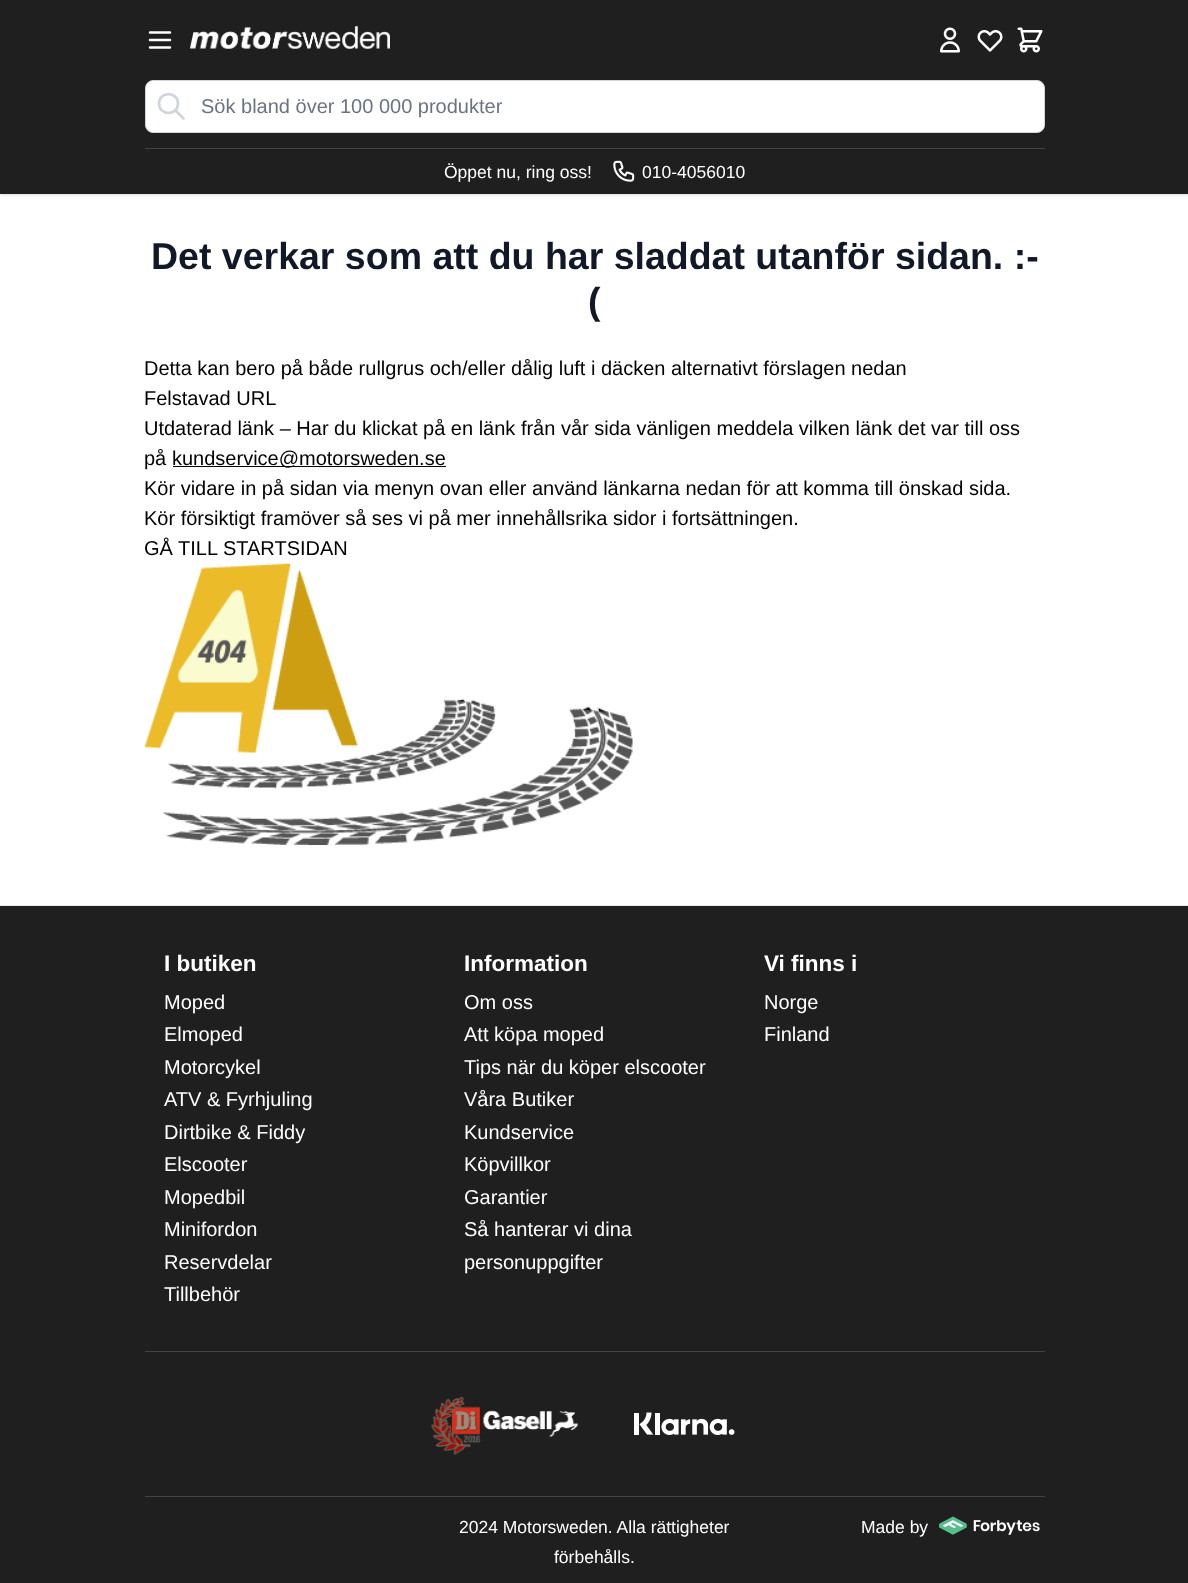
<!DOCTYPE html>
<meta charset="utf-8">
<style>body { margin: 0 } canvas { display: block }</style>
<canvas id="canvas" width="1188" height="1583"></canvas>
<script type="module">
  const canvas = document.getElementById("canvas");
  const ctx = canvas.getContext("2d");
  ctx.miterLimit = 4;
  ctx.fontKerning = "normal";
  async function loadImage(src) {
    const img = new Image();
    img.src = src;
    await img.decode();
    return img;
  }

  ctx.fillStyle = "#ffffff";
  ctx.fillRect(0, 0, 1188, 1583);
  ctx.fillStyle = "rgba(0, 0, 0, 0.1)";
  ctx.filter = "blur(1px)";
  ctx.beginPath();
  ctx.rect(1, 3, 1187, 191);
  ctx.fill();
  ctx.filter = "none";
  ctx.filter = "blur(2px)";
  ctx.beginPath();
  ctx.rect(0, 1, 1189, 194);
  ctx.fill();
  ctx.filter = "none";
  ctx.fillStyle = "#1f1f1f";
  ctx.fillRect(0, 0, 1188, 194);
  ctx.beginPath();
  ctx.moveTo(150, 32.5);
  ctx.lineTo(170, 32.5);
  ctx.moveTo(150, 40);
  ctx.lineTo(170, 40);
  ctx.moveTo(150, 47.5);
  ctx.lineTo(170, 47.5);
  ctx.strokeStyle = "#ffffff";
  ctx.lineWidth = 2.5;
  ctx.lineCap = "round";
  ctx.lineJoin = "round";
  ctx.stroke();
  ctx.drawImage(await loadImage("img1.png"), 190, 26, 200, 23);
  ctx.drawImage(await loadImage("img2.png"), 940, 27, 20, 26);
  ctx.drawImage(await loadImage("img3.png"), 977, 30, 26, 22);
  ctx.drawImage(await loadImage("img4.png"), 1017, 27, 26, 26);
  ctx.fillStyle = "#424242";
  ctx.fillRect(145, 148, 900, 1);
  ctx.fillStyle = "#ffffff";
  ctx.beginPath();
  ctx.roundRect(145.5, 80.5, 899, 52, 7.5);
  ctx.fill();
  ctx.strokeStyle = "#d1d5db";
  ctx.lineWidth = 1;
  ctx.lineJoin = "miter";
  ctx.stroke();
  ctx.beginPath();
  ctx.moveTo(183.5, 118.5);
  ctx.lineTo(175.5, 110.5);
  ctx.moveTo(178, 103.5);
  ctx.bezierCurveTo(178, 116, 159, 116, 159, 103.5);
  ctx.bezierCurveTo(159, 91, 178, 91, 178, 103.5);
  ctx.closePath();
  ctx.lineWidth = 2.7;
  ctx.lineJoin = "round";
  ctx.stroke();
  ctx.font = "20px Liberation Sans";
  ctx.fillStyle = "#6b7280";
  ctx.fillText("Sök bland över 100 000 produkter", 201, 113);
  ctx.font = "17.5px Liberation Sans";
  ctx.fillStyle = "#ffffff";
  ctx.fillText("Öppet nu, ring oss!", 444, 178);
  ctx.drawImage(await loadImage("img5.png"), 613, 160, 22, 22);
  ctx.fillText("010-4056010", 642, 178);
  ctx.font = "bold 37.5px Liberation Sans";
  ctx.fillStyle = "#111827";
  ctx.fillText("Det verkar som att du har sladdat utanför sidan. :-", 151, 269);
  ctx.fillText("(", 588, 314);
  ctx.font = "20px Liberation Sans";
  ctx.fillStyle = "#000000";
  ctx.fillText("Detta kan bero på både rullgrus och/eller dålig luft i däcken alternativt förslagen nedan", 144, 375);
  ctx.fillText("Felstavad URL", 144, 405);
  ctx.fillText("Utdaterad länk – Har du klickat på en länk från vår sida vänligen meddela vilken länk det var till oss", 144, 435);
  ctx.fillText("på", 144, 465);
  ctx.fillRect(173, 466, 273, 1);
  ctx.fillText("kundservice@motorsweden.se", 172, 465);
  ctx.fillText("Kör vidare in på sidan via menyn ovan eller använd länkarna nedan för att komma till önskad sida.", 144, 495);
  ctx.fillText("Kör försiktigt framöver så ses vi på mer innehållsrika sidor i fortsättningen.", 144, 525);
  ctx.fillText("GÅ TILL STARTSIDAN", 144, 555);
  ctx.drawImage(await loadImage("img6.png"), 145, 563, 488, 282);
  ctx.fillStyle = "#1f1f1f";
  ctx.fillRect(0, 906, 1188, 677);
  ctx.fillStyle = "#e5e7eb";
  ctx.fillRect(0, 905, 1188, 1);
  ctx.fillStyle = "#424242";
  ctx.fillRect(145, 1351, 900, 1);
  ctx.font = "bold 22.5px Liberation Sans";
  ctx.fillStyle = "#ffffff";
  ctx.fillText("I butiken", 164, 971);
  ctx.font = "20px Liberation Sans";
  ctx.fillText("Moped", 164, 1009);
  ctx.fillText("Elmoped", 164, 1041);
  ctx.fillText("Motorcykel", 164, 1074);
  ctx.fillText("ATV & Fyrhjuling", 164, 1106);
  ctx.fillText("Dirtbike & Fiddy", 164, 1139);
  ctx.fillText("Elscooter", 164, 1171);
  ctx.fillText("Mopedbil", 164, 1204);
  ctx.fillText("Minifordon", 164, 1236);
  ctx.fillText("Reservdelar", 164, 1269);
  ctx.fillText("Tillbehör", 164, 1301);
  ctx.font = "bold 22.5px Liberation Sans";
  ctx.fillText("Information", 464, 971);
  ctx.font = "20px Liberation Sans";
  ctx.fillText("Om oss", 464, 1009);
  ctx.fillText("Att köpa moped", 464, 1041);
  ctx.fillText("Tips när du köper elscooter", 464, 1074);
  ctx.fillText("Våra Butiker", 464, 1106);
  ctx.fillText("Kundservice", 464, 1139);
  ctx.fillText("Köpvillkor", 464, 1171);
  ctx.fillText("Garantier", 464, 1204);
  ctx.fillText("Så hanterar vi dina", 464, 1236);
  ctx.fillText("personuppgifter", 464, 1269);
  ctx.font = "bold 22.5px Liberation Sans";
  ctx.fillText("Vi finns i", 764, 971);
  ctx.font = "20px Liberation Sans";
  ctx.fillText("Norge", 764, 1009);
  ctx.fillText("Finland", 764, 1041);
  ctx.fillStyle = "#424242";
  ctx.fillRect(145, 1496, 900, 1);
  ctx.drawImage(await loadImage("img7.png"), 431, 1396, 148, 59);
  ctx.drawImage(await loadImage("img8.png"), 634, 1412, 101, 23);
  ctx.font = "17.5px Liberation Sans";
  ctx.fillStyle = "#ffffff";
  ctx.fillText("2024 Motorsweden. Alla rättigheter", 459, 1533);
  ctx.fillText("förbehålls.", 554, 1563);
  ctx.fillText("Made by", 861, 1533);
  ctx.drawImage(await loadImage("img9.png"), 939, 1516, 101, 19);
</script>
